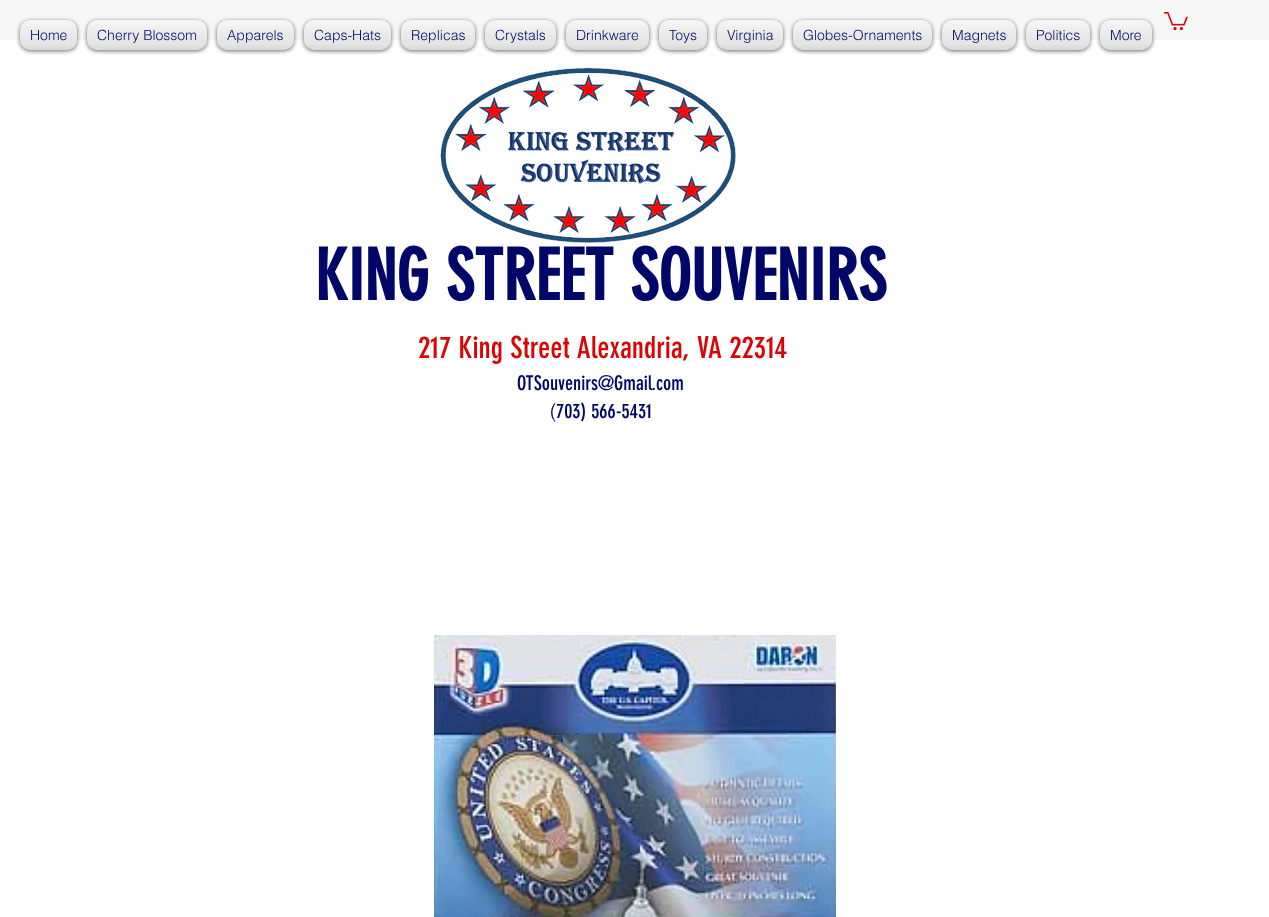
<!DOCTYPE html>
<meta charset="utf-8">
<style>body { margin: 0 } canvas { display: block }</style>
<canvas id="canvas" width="1269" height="917"></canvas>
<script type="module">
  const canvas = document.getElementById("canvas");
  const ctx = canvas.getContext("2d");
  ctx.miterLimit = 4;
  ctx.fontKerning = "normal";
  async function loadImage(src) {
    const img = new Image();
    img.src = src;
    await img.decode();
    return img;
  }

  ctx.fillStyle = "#ffffff";
  ctx.fillRect(0, 0, 1269, 917);
  ctx.fillStyle = "#f7f7f7";
  ctx.fillRect(0, 0, 1269, 40);
  ctx.fillStyle = "rgba(0, 0, 0, 0.6)";
  ctx.filter = "blur(2px)";
  ctx.beginPath();
  ctx.roundRect(20, 21, 57, 30, 10);
  ctx.fill();
  ctx.filter = "none";
  ctx.fillStyle = "#ffffff";
  ctx.beginPath();
  ctx.roundRect(20, 20, 57, 30, 10);
  ctx.fill();
  ctx.drawImage(await loadImage("img1.png"), 20, 20, 57, 30);
  ctx.font = "300 14px helvetica";
  ctx.fillStyle = "#000769";
  ctx.fillText("Home", 30, 40);
  ctx.fillStyle = "rgba(0, 0, 0, 0.6)";
  ctx.filter = "blur(2px)";
  ctx.beginPath();
  ctx.roundRect(87, 21, 120, 30, 10);
  ctx.fill();
  ctx.filter = "none";
  ctx.fillStyle = "#ffffff";
  ctx.beginPath();
  ctx.roundRect(87, 20, 120, 30, 10);
  ctx.fill();
  ctx.drawImage(await loadImage("img2.png"), 87, 20, 120, 30);
  ctx.fillStyle = "#000769";
  ctx.fillText("Cherry Blossom", 97, 40);
  ctx.fillStyle = "rgba(0, 0, 0, 0.6)";
  ctx.filter = "blur(2px)";
  ctx.beginPath();
  ctx.roundRect(217, 21, 77, 30, 10);
  ctx.fill();
  ctx.filter = "none";
  ctx.fillStyle = "#ffffff";
  ctx.beginPath();
  ctx.roundRect(217, 20, 77, 30, 10);
  ctx.fill();
  ctx.drawImage(await loadImage("img3.png"), 217, 20, 77, 30);
  ctx.fillStyle = "#000769";
  ctx.fillText("Apparels", 227, 40);
  ctx.fillStyle = "rgba(0, 0, 0, 0.6)";
  ctx.filter = "blur(2px)";
  ctx.beginPath();
  ctx.roundRect(304, 21, 87, 30, 10);
  ctx.fill();
  ctx.filter = "none";
  ctx.fillStyle = "#ffffff";
  ctx.beginPath();
  ctx.roundRect(304, 20, 87, 30, 10);
  ctx.fill();
  ctx.drawImage(await loadImage("img4.png"), 304, 20, 87, 30);
  ctx.fillStyle = "#000769";
  ctx.fillText("Caps-Hats", 314, 40);
  ctx.fillStyle = "rgba(0, 0, 0, 0.6)";
  ctx.filter = "blur(2px)";
  ctx.beginPath();
  ctx.roundRect(401, 21, 74, 30, 10);
  ctx.fill();
  ctx.filter = "none";
  ctx.fillStyle = "#ffffff";
  ctx.beginPath();
  ctx.roundRect(401, 20, 74, 30, 10);
  ctx.fill();
  ctx.drawImage(await loadImage("img5.png"), 401, 20, 74, 30);
  ctx.fillStyle = "#000769";
  ctx.fillText("Replicas", 411, 40);
  ctx.fillStyle = "rgba(0, 0, 0, 0.6)";
  ctx.filter = "blur(2px)";
  ctx.beginPath();
  ctx.roundRect(485, 21, 71, 30, 10);
  ctx.fill();
  ctx.filter = "none";
  ctx.fillStyle = "#ffffff";
  ctx.beginPath();
  ctx.roundRect(485, 20, 71, 30, 10);
  ctx.fill();
  ctx.drawImage(await loadImage("img6.png"), 485, 20, 71, 30);
  ctx.fillStyle = "#000769";
  ctx.fillText("Crystals", 495, 40);
  ctx.fillStyle = "rgba(0, 0, 0, 0.6)";
  ctx.filter = "blur(2px)";
  ctx.beginPath();
  ctx.roundRect(566, 21, 83, 30, 10);
  ctx.fill();
  ctx.filter = "none";
  ctx.fillStyle = "#ffffff";
  ctx.beginPath();
  ctx.roundRect(566, 20, 83, 30, 10);
  ctx.fill();
  ctx.drawImage(await loadImage("img7.png"), 566, 20, 83, 30);
  ctx.fillStyle = "#000769";
  ctx.fillText("Drinkware", 576, 40);
  ctx.fillStyle = "rgba(0, 0, 0, 0.6)";
  ctx.filter = "blur(2px)";
  ctx.beginPath();
  ctx.roundRect(659, 21, 48, 30, 10);
  ctx.fill();
  ctx.filter = "none";
  ctx.fillStyle = "#ffffff";
  ctx.beginPath();
  ctx.roundRect(659, 20, 48, 30, 10);
  ctx.fill();
  ctx.drawImage(await loadImage("img8.png"), 659, 20, 48, 30);
  ctx.fillStyle = "#000769";
  ctx.fillText("Toys", 669, 40);
  ctx.fillStyle = "rgba(0, 0, 0, 0.6)";
  ctx.filter = "blur(2px)";
  ctx.beginPath();
  ctx.roundRect(717, 21, 66, 30, 10);
  ctx.fill();
  ctx.filter = "none";
  ctx.fillStyle = "#ffffff";
  ctx.beginPath();
  ctx.roundRect(717, 20, 66, 30, 10);
  ctx.fill();
  ctx.drawImage(await loadImage("img9.png"), 717, 20, 66, 30);
  ctx.fillStyle = "#000769";
  ctx.fillText("Virginia", 727, 40);
  ctx.fillStyle = "rgba(0, 0, 0, 0.6)";
  ctx.filter = "blur(2px)";
  ctx.beginPath();
  ctx.roundRect(793, 21, 139, 30, 10);
  ctx.fill();
  ctx.filter = "none";
  ctx.fillStyle = "#ffffff";
  ctx.beginPath();
  ctx.roundRect(793, 20, 139, 30, 10);
  ctx.fill();
  ctx.drawImage(await loadImage("img10.png"), 793, 20, 139, 30);
  ctx.fillStyle = "#000769";
  ctx.fillText("Globes-Ornaments", 803, 40);
  ctx.fillStyle = "rgba(0, 0, 0, 0.6)";
  ctx.filter = "blur(2px)";
  ctx.beginPath();
  ctx.roundRect(942, 21, 74, 30, 10);
  ctx.fill();
  ctx.filter = "none";
  ctx.fillStyle = "#ffffff";
  ctx.beginPath();
  ctx.roundRect(942, 20, 74, 30, 10);
  ctx.fill();
  ctx.drawImage(await loadImage("img11.png"), 942, 20, 74, 30);
  ctx.fillStyle = "#000769";
  ctx.fillText("Magnets", 952, 40);
  ctx.fillStyle = "rgba(0, 0, 0, 0.6)";
  ctx.filter = "blur(2px)";
  ctx.beginPath();
  ctx.roundRect(1026, 21, 64, 30, 10);
  ctx.fill();
  ctx.filter = "none";
  ctx.fillStyle = "#ffffff";
  ctx.beginPath();
  ctx.roundRect(1026, 20, 64, 30, 10);
  ctx.fill();
  ctx.drawImage(await loadImage("img12.png"), 1026, 20, 64, 30);
  ctx.fillStyle = "#000769";
  ctx.fillText("Politics", 1036, 40);
  ctx.fillStyle = "rgba(0, 0, 0, 0.6)";
  ctx.filter = "blur(2px)";
  ctx.beginPath();
  ctx.roundRect(1100, 21, 52, 30, 10);
  ctx.fill();
  ctx.filter = "none";
  ctx.fillStyle = "#ffffff";
  ctx.beginPath();
  ctx.roundRect(1100, 20, 52, 30, 10);
  ctx.fill();
  ctx.drawImage(await loadImage("img13.png"), 1100, 20, 52, 30);
  ctx.fillStyle = "#000769";
  ctx.fillText("More", 1110, 40);
  ctx.drawImage(await loadImage("img14.png"), 1164, 12, 24, 19);
  ctx.drawImage(await loadImage("img15.png"), 440, 67, 296, 176);
  ctx.font = "bold 70px 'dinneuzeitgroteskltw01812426'";
  ctx.fillText("KING STREET SOUVENIRS", 315, 300);
  ctx.font = "30px 'dinneuzeitgroteskltw01812426'";
  ctx.fillStyle = "#db0404";
  ctx.fillText("217 King Street Alexandria, VA 22314", 418, 358);
  ctx.font = "20px 'dinneuzeitgroteskltw01812426'";
  ctx.fillStyle = "#000769";
  ctx.fillText("OTSouvenirs@Gmail.com", 517, 390);
  ctx.font = "300 20px helvetica";
  ctx.fillText("(", 550, 418);
  ctx.font = "20px 'dinneuzeitgroteskltw01812426'";
  ctx.fillText("703) 566-5431", 556, 418);
  ctx.drawImage(await loadImage("img16.png"), 434, 635, 402, 282);
</script>
